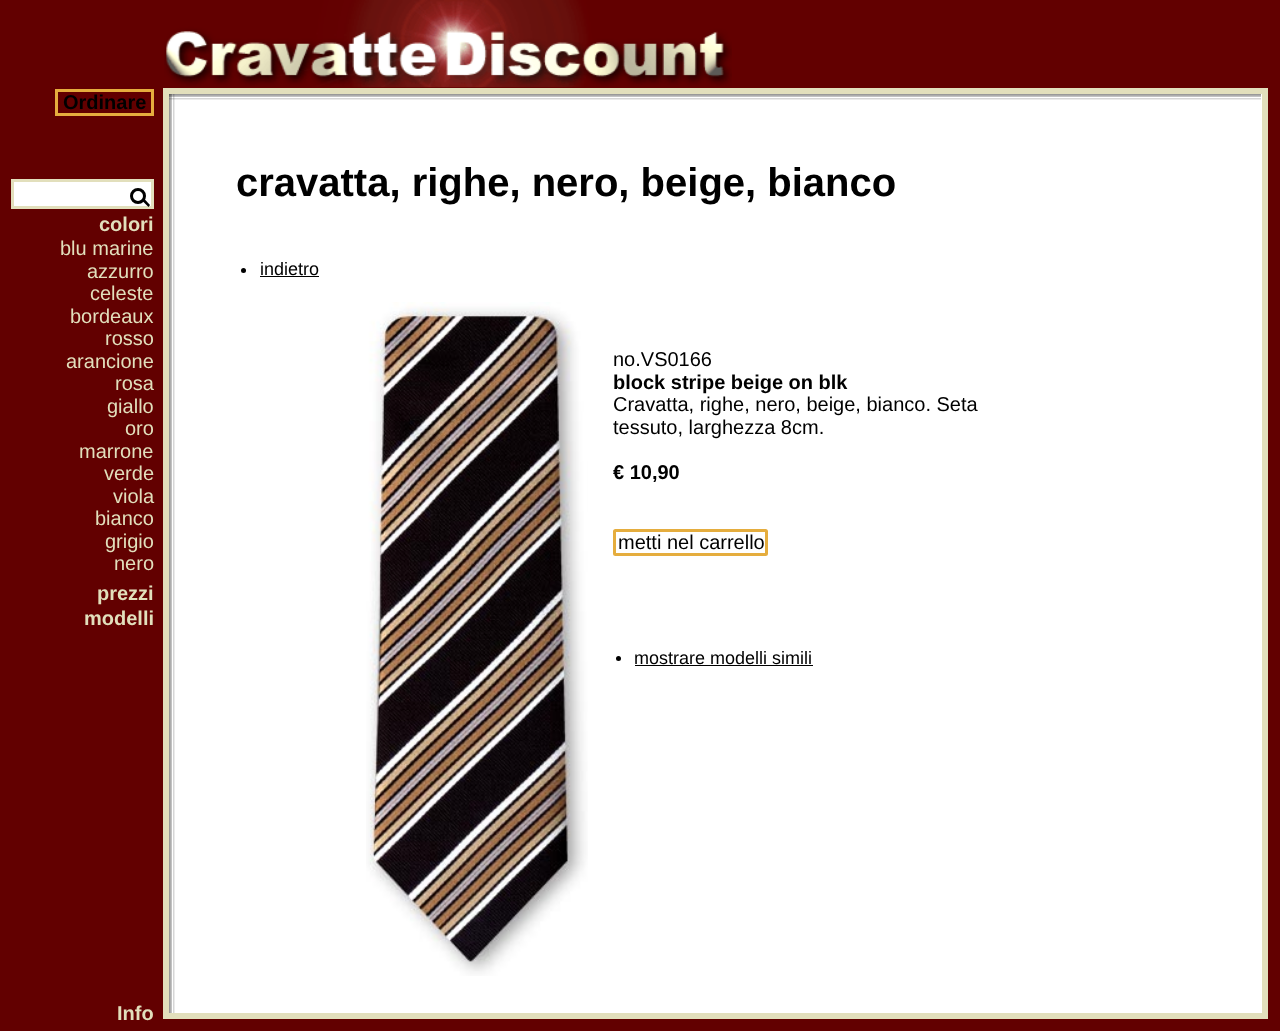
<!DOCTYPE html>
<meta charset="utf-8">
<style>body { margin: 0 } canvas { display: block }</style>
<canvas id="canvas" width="1280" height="1031"></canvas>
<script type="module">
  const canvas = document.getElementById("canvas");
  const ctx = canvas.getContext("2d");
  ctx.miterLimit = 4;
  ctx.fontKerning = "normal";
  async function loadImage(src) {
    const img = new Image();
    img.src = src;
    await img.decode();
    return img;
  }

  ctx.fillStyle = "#620000";
  ctx.fillRect(0, 0, 1280, 1031);
  ctx.drawImage(await loadImage("img1.png"), 164, 0, 568, 88);
  ctx.strokeStyle = "#e5ad3e";
  ctx.lineWidth = 3;
  ctx.strokeRect(56.5, 90.5, 96, 24);
  ctx.font = "bold 20px Liberation Sans";
  ctx.fillStyle = "#000000";
  ctx.fillText("Ordinare", 63, 109);
  ctx.fillStyle = "#ffffff";
  ctx.beginPath();
  ctx.rect(12.5, 180.5, 140, 27);
  ctx.fill();
  ctx.strokeStyle = "#e2dfbc";
  ctx.stroke();
  ctx.beginPath();
  ctx.arc(138, 196, 6.5, 0, Math.PI * 2);
  ctx.strokeStyle = "#000000";
  ctx.stroke();
  ctx.fillStyle = "#000000";
  ctx.beginPath();
  ctx.moveTo(143.5, 198);
  ctx.lineTo(150, 205);
  ctx.lineTo(148.5, 207);
  ctx.lineTo(141.5, 200);
  ctx.closePath();
  ctx.fill();
  ctx.fillStyle = "#e2dfbc";
  ctx.fillText("colori", 99, 231);
  ctx.font = "20px Liberation Sans";
  ctx.fillText("blu marine", 60, 255);
  ctx.fillText("azzurro", 87, 278);
  ctx.fillText("celeste", 90, 300);
  ctx.fillText("bordeaux", 70, 323);
  ctx.fillText("rosso", 105, 345);
  ctx.fillText("arancione", 66, 368);
  ctx.fillText("rosa", 115, 390);
  ctx.fillText("giallo", 107, 413);
  ctx.fillText("oro", 125, 435);
  ctx.fillText("marrone", 79, 458);
  ctx.fillText("verde", 104, 480);
  ctx.fillText("viola", 113, 503);
  ctx.fillText("bianco", 95, 525);
  ctx.fillText("grigio", 105, 548);
  ctx.fillText("nero", 114, 570);
  ctx.font = "bold 20px Liberation Sans";
  ctx.fillText("prezzi", 97, 600);
  ctx.fillText("modelli", 84, 625);
  ctx.fillStyle = "#ffffff";
  ctx.fillRect(172, 94, 1090, 919);
  ctx.fillStyle = "#ebebeb";
  ctx.fillRect(169, 99, 1092, 1);
  ctx.fillStyle = "#d6d6d6";
  ctx.fillRect(169, 98, 1092, 1);
  ctx.fillStyle = "#c2c2c2";
  ctx.fillRect(169, 96, 1092, 1);
  ctx.fillStyle = "#adadad";
  ctx.fillRect(169, 95, 1092, 1);
  ctx.fillStyle = "#999999";
  ctx.fillRect(169, 94, 1092, 1);
  ctx.strokeStyle = "#e2dfbc";
  ctx.lineWidth = 6;
  ctx.strokeRect(166, 91, 1099, 925);
  ctx.fillRect(169, 94, 1, 919);
  ctx.fillStyle = "#8d8d8d";
  ctx.fillRect(169, 99, 1, 1);
  ctx.fillStyle = "#818181";
  ctx.fillRect(169, 98, 1, 1);
  ctx.fillStyle = "#747474";
  ctx.fillRect(169, 96, 1, 1);
  ctx.fillStyle = "#686868";
  ctx.fillRect(169, 95, 1, 1);
  ctx.fillStyle = "#5c5c5c";
  ctx.fillRect(169, 94, 1, 1);
  ctx.fillStyle = "#adadad";
  ctx.fillRect(170, 94, 1, 919);
  ctx.fillStyle = "#9f9f9f";
  ctx.fillRect(170, 99, 1, 1);
  ctx.fillStyle = "#919191";
  ctx.fillRect(170, 98, 1, 1);
  ctx.fillStyle = "#838383";
  ctx.fillRect(170, 96, 1, 1);
  ctx.fillStyle = "#767676";
  ctx.fillRect(170, 95, 1, 1);
  ctx.fillStyle = "#686868";
  ctx.fillRect(170, 94, 1, 1);
  ctx.fillStyle = "#c2c2c2";
  ctx.fillRect(171, 94, 1, 919);
  ctx.fillStyle = "#b2b2b2";
  ctx.fillRect(171, 99, 1, 1);
  ctx.fillStyle = "#a3a3a3";
  ctx.fillRect(171, 98, 1, 1);
  ctx.fillStyle = "#939393";
  ctx.fillRect(171, 96, 1, 1);
  ctx.fillStyle = "#848484";
  ctx.fillRect(171, 95, 1, 1);
  ctx.fillStyle = "#747474";
  ctx.fillRect(171, 94, 1, 1);
  ctx.fillStyle = "#d6d6d6";
  ctx.fillRect(173, 94, 1, 919);
  ctx.fillStyle = "#c5c5c5";
  ctx.fillRect(173, 99, 1, 1);
  ctx.fillStyle = "#b4b4b4";
  ctx.fillRect(173, 98, 1, 1);
  ctx.fillStyle = "#a3a3a3";
  ctx.fillRect(173, 96, 1, 1);
  ctx.fillStyle = "#929292";
  ctx.fillRect(173, 95, 1, 1);
  ctx.fillStyle = "#808080";
  ctx.fillRect(173, 94, 1, 1);
  ctx.fillStyle = "#ebebeb";
  ctx.fillRect(174, 94, 1, 919);
  ctx.fillStyle = "#d8d8d8";
  ctx.fillRect(174, 99, 1, 1);
  ctx.fillStyle = "#c5c5c5";
  ctx.fillRect(174, 98, 1, 1);
  ctx.fillStyle = "#b3b3b3";
  ctx.fillRect(174, 96, 1, 1);
  ctx.fillStyle = "#a0a0a0";
  ctx.fillRect(174, 95, 1, 1);
  ctx.fillStyle = "#8d8d8d";
  ctx.fillRect(174, 94, 1, 1);
  ctx.font = "bold 40px Liberation Sans";
  ctx.fillStyle = "#000000";
  ctx.fillText("cravatta, righe, nero, beige, bianco", 236, 196);
  ctx.beginPath();
  ctx.arc(243.5, 270.5, 2.5, 0, Math.PI * 2);
  ctx.fill();
  ctx.font = "18px Liberation Sans";
  ctx.fillText("indietro", 260, 275);
  ctx.fillRect(260, 276, 59, 1);
  ctx.drawImage(await loadImage("img2.png"), 366, 302, 222, 674);
  ctx.font = "20px Liberation Sans";
  ctx.fillText("no.VS0166", 613, 366);
  ctx.font = "bold 20px Liberation Sans";
  ctx.fillText("block stripe beige on blk", 613, 389);
  ctx.font = "20px Liberation Sans";
  ctx.fillText("Cravatta, righe, nero, beige, bianco. Seta", 613, 411);
  ctx.fillText("tessuto, larghezza 8cm.", 613, 434);
  ctx.font = "bold 20px Liberation Sans";
  ctx.fillText("€ 10,90", 613, 479);
  ctx.beginPath();
  ctx.roundRect(614.5, 530.5, 152, 24, 1);
  ctx.strokeStyle = "#e5ad3e";
  ctx.lineWidth = 3;
  ctx.stroke();
  ctx.font = "20px Liberation Sans";
  ctx.fillText("metti nel carrello", 618, 549);
  ctx.beginPath();
  ctx.arc(618.5, 658.5, 2.5, 0, Math.PI * 2);
  ctx.fill();
  ctx.font = "18px Liberation Sans";
  ctx.fillText("mostrare modelli simili", 634, 664);
  ctx.fillRect(635, 665, 178, 1);
  ctx.font = "bold 20px Liberation Sans";
  ctx.fillStyle = "#e2dfbc";
  ctx.fillText("Info", 117, 1020);
</script>
